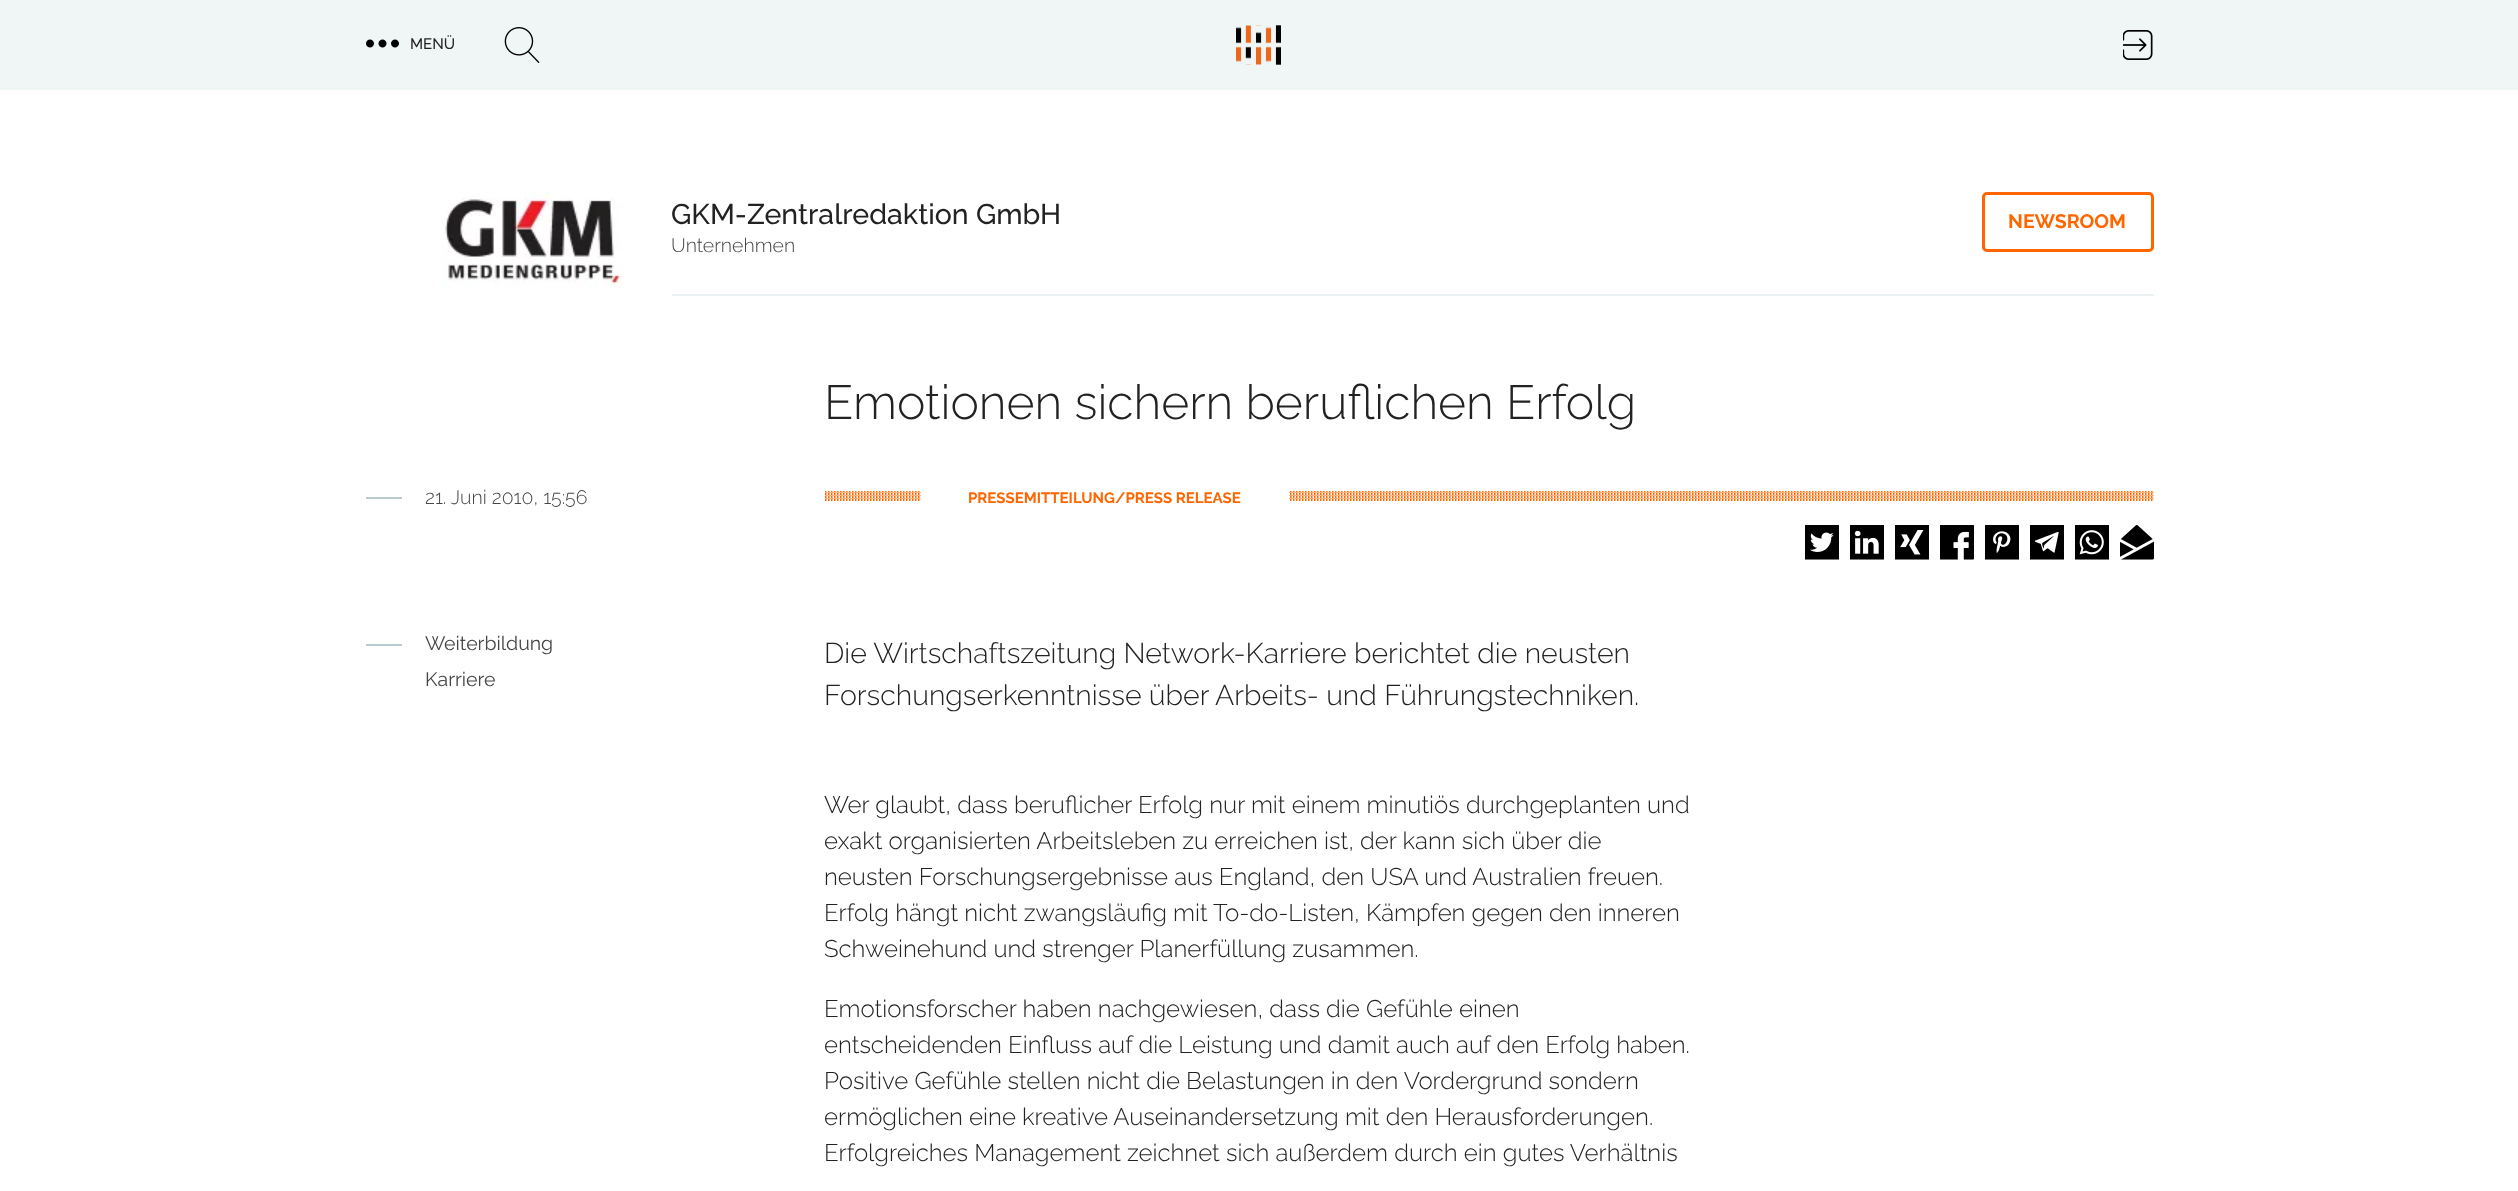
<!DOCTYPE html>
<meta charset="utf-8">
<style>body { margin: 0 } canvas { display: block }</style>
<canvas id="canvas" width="2518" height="1191"></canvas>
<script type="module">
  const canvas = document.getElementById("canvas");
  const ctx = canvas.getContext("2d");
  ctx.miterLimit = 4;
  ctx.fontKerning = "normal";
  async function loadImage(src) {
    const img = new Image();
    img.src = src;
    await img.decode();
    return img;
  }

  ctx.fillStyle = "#ffffff";
  ctx.fillRect(0, 0, 2518, 1191);
  ctx.fillStyle = "#f0f5f6";
  ctx.fillRect(0, 0, 2518, 90);
  ctx.drawImage(await loadImage("img1.png"), 366, 39, 33, 9);
  ctx.font = "100 15px Raleway";
  ctx.fillStyle = "#222222";
  ctx.fillText("MENÜ", 410, 49);
  ctx.drawImage(await loadImage("img2.png"), 504, 27, 36, 36);
  ctx.drawImage(await loadImage("img3.png"), 1236, 25, 45, 40);
  ctx.drawImage(await loadImage("img4.png"), 2123, 30, 30, 30);
  ctx.drawImage(await loadImage("img5.png"), 441, 192, 181, 96);
  ctx.fillStyle = "#ecf2f3";
  ctx.fillRect(672, 294, 1482, 2);
  ctx.font = "100 28.5px Raleway";
  ctx.fillStyle = "#222222";
  ctx.fillText("GKM-Zentralredaktion GmbH", 671, 224);
  ctx.font = "100 19.5px 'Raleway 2'";
  ctx.fillStyle = "#464646";
  ctx.fillText("Unternehmen", 671, 252);
  ctx.beginPath();
  ctx.roundRect(1983.5, 193.5, 169, 57, 3.5);
  ctx.strokeStyle = "#ff6600";
  ctx.lineWidth = 3;
  ctx.stroke();
  ctx.font = "100 19.5px 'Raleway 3'";
  ctx.fillStyle = "#ff6600";
  ctx.fillText("NEWSROOM", 2008, 228);
  ctx.font = "100 48px 'Raleway 2'";
  ctx.fillStyle = "#222222";
  ctx.fillText("Emotionen sichern beruflichen Erfolg", 824, 419);
  ctx.fillStyle = "#b8ccd0";
  ctx.fillRect(366, 497, 36, 2);
  ctx.font = "100 19.5px 'Raleway 2'";
  ctx.fillStyle = "#464646";
  ctx.fillText("21. Juni 2010, 15:56", 425, 504);
  ctx.fillStyle = "#ff6600";
  ctx.fillRect(825, 491, 1329, 10);
  ctx.drawImage(await loadImage("img6.png"), 825, 491, 1329, 10);
  ctx.fillStyle = "#ffffff";
  ctx.fillRect(921, 491, 368, 10);
  ctx.font = "100 15px 'Raleway 3'";
  ctx.fillStyle = "#ff6600";
  ctx.fillText("PRESSEMITTEILUNG/PRESS RELEASE", 968, 503);
  ctx.drawImage(await loadImage("img7.png"), 1805, 525, 34, 35);
  ctx.drawImage(await loadImage("img8.png"), 1850, 525, 34, 35);
  ctx.drawImage(await loadImage("img9.png"), 1895, 525, 34, 35);
  ctx.drawImage(await loadImage("img10.png"), 1940, 525, 34, 35);
  ctx.drawImage(await loadImage("img11.png"), 1985, 525, 34, 35);
  ctx.drawImage(await loadImage("img12.png"), 2030, 525, 34, 35);
  ctx.drawImage(await loadImage("img13.png"), 2075, 525, 34, 35);
  ctx.drawImage(await loadImage("img14.png"), 2120, 525, 34, 35);
  ctx.fillStyle = "#b8ccd0";
  ctx.fillRect(366, 644, 36, 2);
  ctx.font = "100 19.5px 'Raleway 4'";
  ctx.fillStyle = "#464646";
  ctx.fillText("Weiterbildung", 425, 650);
  ctx.fillText("Karriere", 425, 686);
  ctx.font = "100 28.5px 'Raleway 2'";
  ctx.fillStyle = "#222222";
  ctx.fillText("Die Wirtschaftszeitung Network-Karriere berichtet die neusten", 824, 663);
  ctx.fillText("Forschungserkenntnisse über Arbeits- und Führungstechniken.", 824, 705);
  ctx.font = "100 24px 'Raleway 2'";
  ctx.fillText("Wer glaubt, dass beruflicher Erfolg nur mit einem minutiös durchgeplanten und", 824, 813);
  ctx.fillText("exakt organisierten Arbeitsleben zu erreichen ist, der kann sich über die", 824, 849);
  ctx.fillText("neusten Forschungsergebnisse aus England, den USA und Australien freuen.", 824, 885);
  ctx.fillText("Erfolg hängt nicht zwangsläufig mit To-do-Listen, Kämpfen gegen den inneren", 824, 921);
  ctx.fillText("Schweinehund und strenger Planerfüllung zusammen.", 824, 957);
  ctx.fillText("Emotionsforscher haben nachgewiesen, dass die Gefühle einen", 824, 1017);
  ctx.fillText("entscheidenden Einfluss auf die Leistung und damit auch auf den Erfolg haben.", 824, 1053);
  ctx.fillText("Positive Gefühle stellen nicht die Belastungen in den Vordergrund sondern", 824, 1089);
  ctx.fillText("ermöglichen eine kreative Auseinandersetzung mit den Herausforderungen.", 824, 1125);
  ctx.fillText("Erfolgreiches Management zeichnet sich außerdem durch ein gutes Verhältnis", 824, 1161);
</script>
